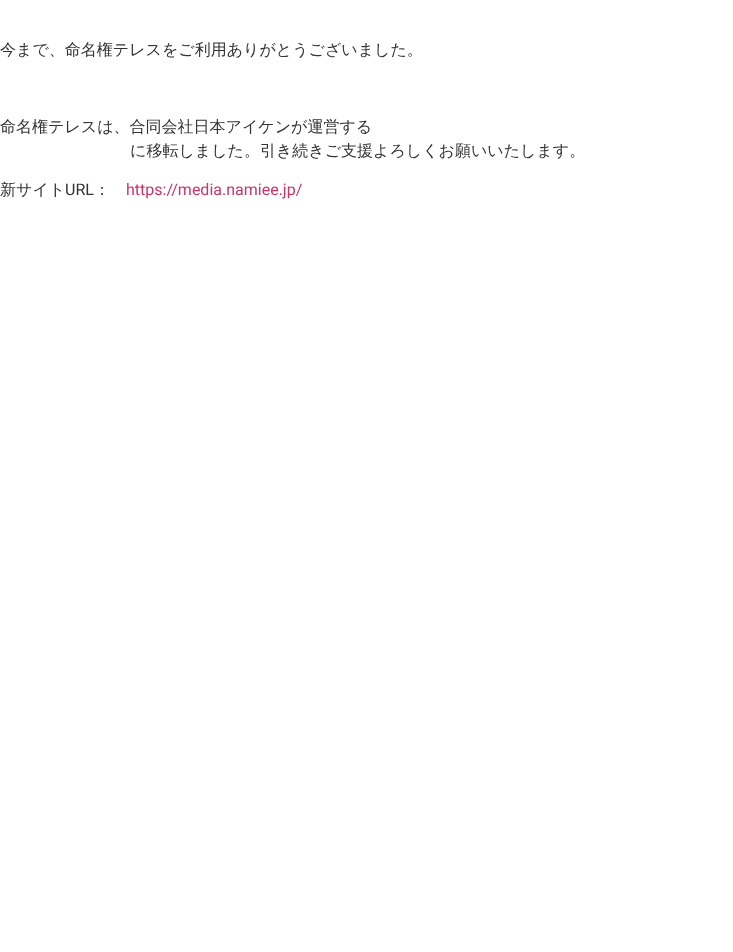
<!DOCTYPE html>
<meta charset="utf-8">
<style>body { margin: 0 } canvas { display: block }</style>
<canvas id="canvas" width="733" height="952"></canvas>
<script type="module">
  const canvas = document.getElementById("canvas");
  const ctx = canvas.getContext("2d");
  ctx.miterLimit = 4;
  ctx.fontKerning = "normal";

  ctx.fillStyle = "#ffffff";
  ctx.fillRect(0, 0, 733, 952);
  ctx.font = "500 16px WenQuanYi Zen Hei";
  ctx.fillStyle = "#333333";
  ctx.fillText("今まで、命名権テレスをご利用ありがとうございました。", 0, 55);
  ctx.fillText("命名権テレスは、合同会社日本アイケンが運営する", 0, 132);
  ctx.fillText("に移転しました。引き続きご支援よろしくお願いいたします。", 130, 156);
  ctx.fillText("新サイト", 0, 195);
  ctx.font = "16px Roboto";
  ctx.fillText("URL", 65, 195);
  ctx.font = "500 16px WenQuanYi Zen Hei";
  ctx.fillText("：", 94, 195);
  ctx.font = "16px Roboto";
  ctx.fillStyle = "#cc3366";
  ctx.fillText("https://media.namiee.jp/", 126, 195);
</script>
